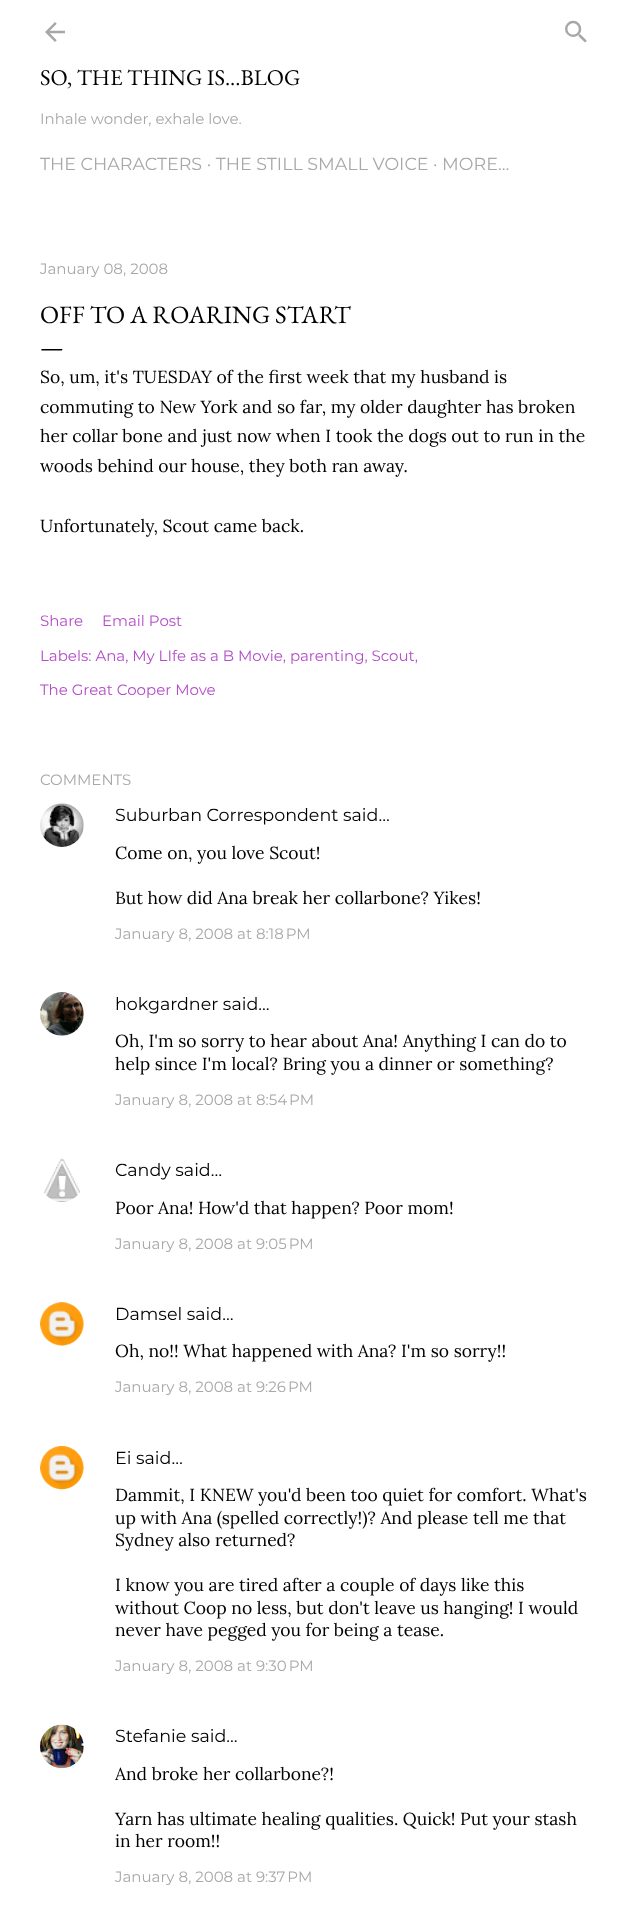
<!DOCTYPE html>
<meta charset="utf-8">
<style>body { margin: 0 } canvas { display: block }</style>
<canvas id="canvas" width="631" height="1925"></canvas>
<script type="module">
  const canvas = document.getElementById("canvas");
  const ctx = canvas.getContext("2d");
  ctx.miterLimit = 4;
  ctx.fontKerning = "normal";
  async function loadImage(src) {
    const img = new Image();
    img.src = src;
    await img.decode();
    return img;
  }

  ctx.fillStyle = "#ffffff";
  ctx.fillRect(0, 0, 631, 1925);
  ctx.drawImage(await loadImage("img1.png"), 45, 22, 20, 20);
  ctx.drawImage(await loadImage("img2.png"), 565, 20, 22, 23);
  ctx.font = "22.5px EB Garamond";
  ctx.fillStyle = "#000000";
  ctx.fillText("SO, THE THING IS...BLOG", 40, 85);
  ctx.font = "15px Montserrat";
  ctx.fillStyle = "#a8a8a8";
  ctx.fillText("Inhale wonder, exhale love.", 40, 124);
  ctx.font = "17.5px Montserrat";
  ctx.fillText("THE CHARACTERS · THE STILL SMALL VOICE · MORE…", 40, 170);
  ctx.font = "15px Montserrat";
  ctx.fillText("January 08, 2008", 40, 274);
  ctx.font = "25px EB Garamond";
  ctx.fillStyle = "#000000";
  ctx.fillText("OFF TO A ROARING START", 40, 323);
  ctx.fillText("—", 40, 355);
  ctx.font = "17.5px Lora";
  ctx.fillText("So, um, it's TUESDAY of the first week that my husband is", 40, 383);
  ctx.fillText("commuting to New York and so far, my older daughter has broken", 40, 413);
  ctx.fillText("her collar bone and just now when I took the dogs out to run in the", 40, 442);
  ctx.fillText("woods behind our house, they both ran away.", 40, 472);
  ctx.fillText("Unfortunately, Scout came back.", 40, 532);
  ctx.font = "15px Montserrat";
  ctx.fillStyle = "#b54cca";
  ctx.fillText("Share", 40, 626);
  ctx.fillText("Email Post", 102, 626);
  ctx.fillText("Labels: Ana, My LIfe as a B Movie, parenting, Scout,", 40, 661);
  ctx.fillText("The Great Cooper Move", 40, 695);
  ctx.fillStyle = "#a8a8a8";
  ctx.fillText("COMMENTS", 40, 785);
  ctx.drawImage(await loadImage("img3.png"), 40, 803, 44, 44);
  ctx.font = "17.5px Montserrat";
  ctx.fillStyle = "#000000";
  ctx.fillText("Suburban Correspondent said…", 115, 821);
  ctx.font = "17.5px Lora";
  ctx.fillText("Come on, you love Scout!", 115, 859);
  ctx.fillText("But how did Ana break her collarbone? Yikes!", 115, 904);
  ctx.font = "15px Montserrat";
  ctx.fillStyle = "#a8a8a8";
  ctx.fillText("January 8, 2008 at 8:18 PM", 115, 939);
  ctx.drawImage(await loadImage("img4.png"), 40, 992, 44, 44);
  ctx.font = "17.5px Montserrat";
  ctx.fillStyle = "#000000";
  ctx.fillText("hokgardner said…", 115, 1010);
  ctx.font = "17.5px Lora";
  ctx.fillText("Oh, I'm so sorry to hear about Ana! Anything I can do to", 115, 1047);
  ctx.fillText("help since I'm local? Bring you a dinner or something?", 115, 1070);
  ctx.font = "15px Montserrat";
  ctx.fillStyle = "#a8a8a8";
  ctx.fillText("January 8, 2008 at 8:54 PM", 115, 1105);
  ctx.drawImage(await loadImage("img5.png"), 44, 1158, 36, 44);
  ctx.font = "17.5px Montserrat";
  ctx.fillStyle = "#000000";
  ctx.fillText("Candy said…", 115, 1176);
  ctx.font = "17.5px Lora";
  ctx.fillText("Poor Ana! How'd that happen? Poor mom!", 115, 1214);
  ctx.font = "15px Montserrat";
  ctx.fillStyle = "#a8a8a8";
  ctx.fillText("January 8, 2008 at 9:05 PM", 115, 1249);
  ctx.drawImage(await loadImage("img6.png"), 40, 1302, 44, 44);
  ctx.font = "17.5px Montserrat";
  ctx.fillStyle = "#000000";
  ctx.fillText("Damsel said…", 115, 1320);
  ctx.font = "17.5px Lora";
  ctx.fillText("Oh, no!! What happened with Ana? I'm so sorry!!", 115, 1357);
  ctx.font = "15px Montserrat";
  ctx.fillStyle = "#a8a8a8";
  ctx.fillText("January 8, 2008 at 9:26 PM", 115, 1392);
  ctx.drawImage(await loadImage("img7.png"), 40, 1445, 44, 45);
  ctx.font = "17.5px Montserrat";
  ctx.fillStyle = "#000000";
  ctx.fillText("Ei said…", 115, 1464);
  ctx.font = "17.5px Lora";
  ctx.fillText("Dammit, I KNEW you'd been too quiet for comfort. What's", 115, 1501);
  ctx.fillText("up with Ana (spelled correctly!)? And please tell me that", 115, 1524);
  ctx.fillText("Sydney also returned?", 115, 1546);
  ctx.fillText("I know you are tired after a couple of days like this", 115, 1591);
  ctx.fillText("without Coop no less, but don't leave us hanging! I would", 115, 1614);
  ctx.fillText("never have pegged you for being a tease.", 115, 1636);
  ctx.font = "15px Montserrat";
  ctx.fillStyle = "#a8a8a8";
  ctx.fillText("January 8, 2008 at 9:30 PM", 115, 1671);
  ctx.drawImage(await loadImage("img8.png"), 40, 1724, 44, 45);
  ctx.font = "17.5px Montserrat";
  ctx.fillStyle = "#000000";
  ctx.fillText("Stefanie said…", 115, 1742);
  ctx.font = "17.5px Lora";
  ctx.fillText("And broke her collarbone?!", 115, 1780);
  ctx.fillText("Yarn has ultimate healing qualities. Quick! Put your stash", 115, 1825);
  ctx.fillText("in her room!!", 115, 1847);
  ctx.font = "15px Montserrat";
  ctx.fillStyle = "#a8a8a8";
  ctx.fillText("January 8, 2008 at 9:37 PM", 115, 1882);
</script>
